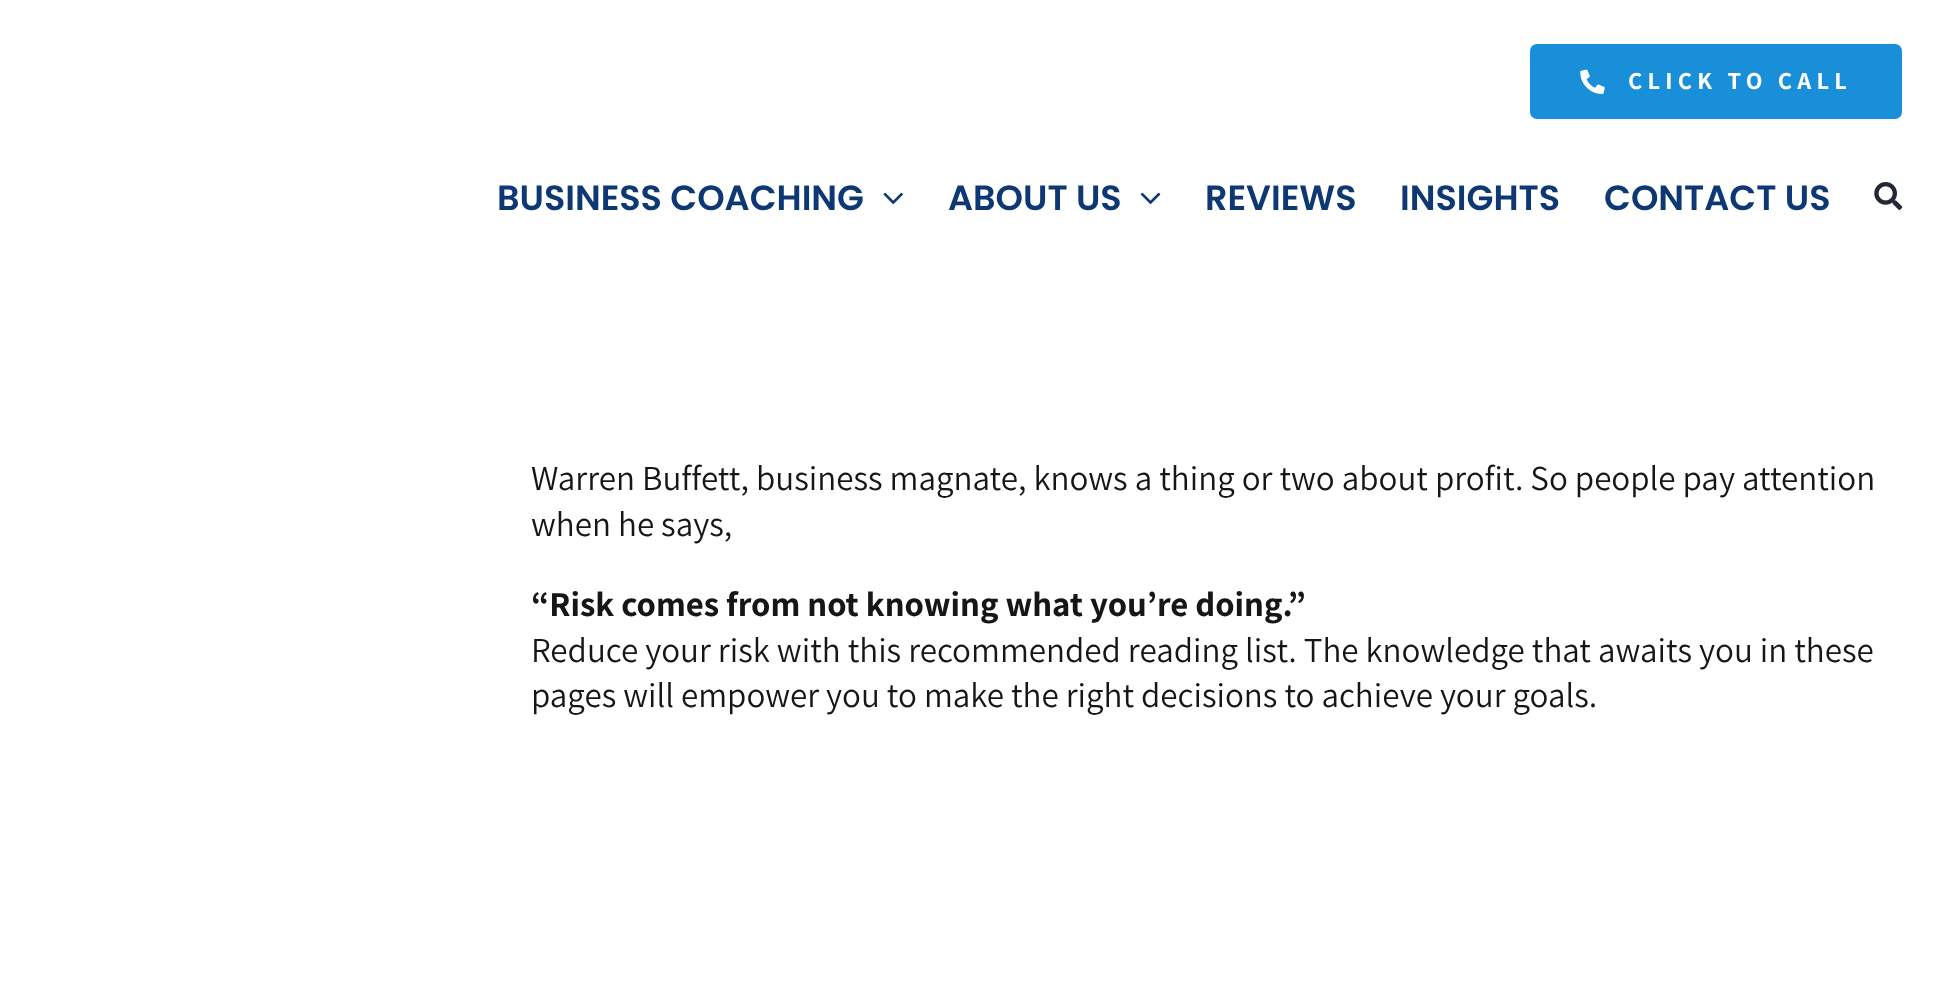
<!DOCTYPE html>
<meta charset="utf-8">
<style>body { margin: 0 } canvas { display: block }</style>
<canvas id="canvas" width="1946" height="992"></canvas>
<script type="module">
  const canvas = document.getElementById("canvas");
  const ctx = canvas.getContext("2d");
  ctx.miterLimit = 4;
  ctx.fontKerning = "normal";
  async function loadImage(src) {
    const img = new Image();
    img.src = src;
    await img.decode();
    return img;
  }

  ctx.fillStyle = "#ffffff";
  ctx.fillRect(0, 0, 1946, 992);
  ctx.fillStyle = "#198fd9";
  ctx.beginPath();
  ctx.roundRect(1530, 44, 372, 75, 7);
  ctx.fill();
  ctx.drawImage(await loadImage("img1.png"), 1580, 69, 25, 26);
  ctx.letterSpacing = "5.25px";
  ctx.font = "bold 24.5px Assistant";
  ctx.fillStyle = "#ffffff";
  ctx.fillText("CLICK TO CALL", 1628, 89);
  ctx.letterSpacing = "0px";
  ctx.font = "600 35px Poppins";
  ctx.fillStyle = "#0e3874";
  ctx.fillText("BUSINESS COACHING", 497, 210);
  ctx.drawImage(await loadImage("img2.png"), 883, 192, 20, 13);
  ctx.fillText("ABOUT US", 948, 210);
  ctx.drawImage(await loadImage("img3.png"), 1140, 192, 21, 13);
  ctx.fillText("REVIEWS", 1205, 210);
  ctx.fillText("INSIGHTS", 1400, 210);
  ctx.fillText("CONTACT US", 1604, 210);
  ctx.drawImage(await loadImage("img4.png"), 1874, 182, 29, 28);
  ctx.font = "35px Assistant";
  ctx.fillStyle = "#141617";
  ctx.fillText("Warren Buffett, business magnate, knows a thing or two about profit. So people pay attention", 531, 490);
  ctx.fillText("when he says,", 531, 536);
  ctx.font = "bold 35px Assistant";
  ctx.fillText("“Risk comes from not knowing what you’re doing.”", 531, 616);
  ctx.font = "35px Assistant";
  ctx.fillText("Reduce your risk with this recommended reading list. The knowledge that awaits you in these", 531, 662);
  ctx.fillText("pages will empower you to make the right decisions to achieve your goals.", 531, 707);
</script>
